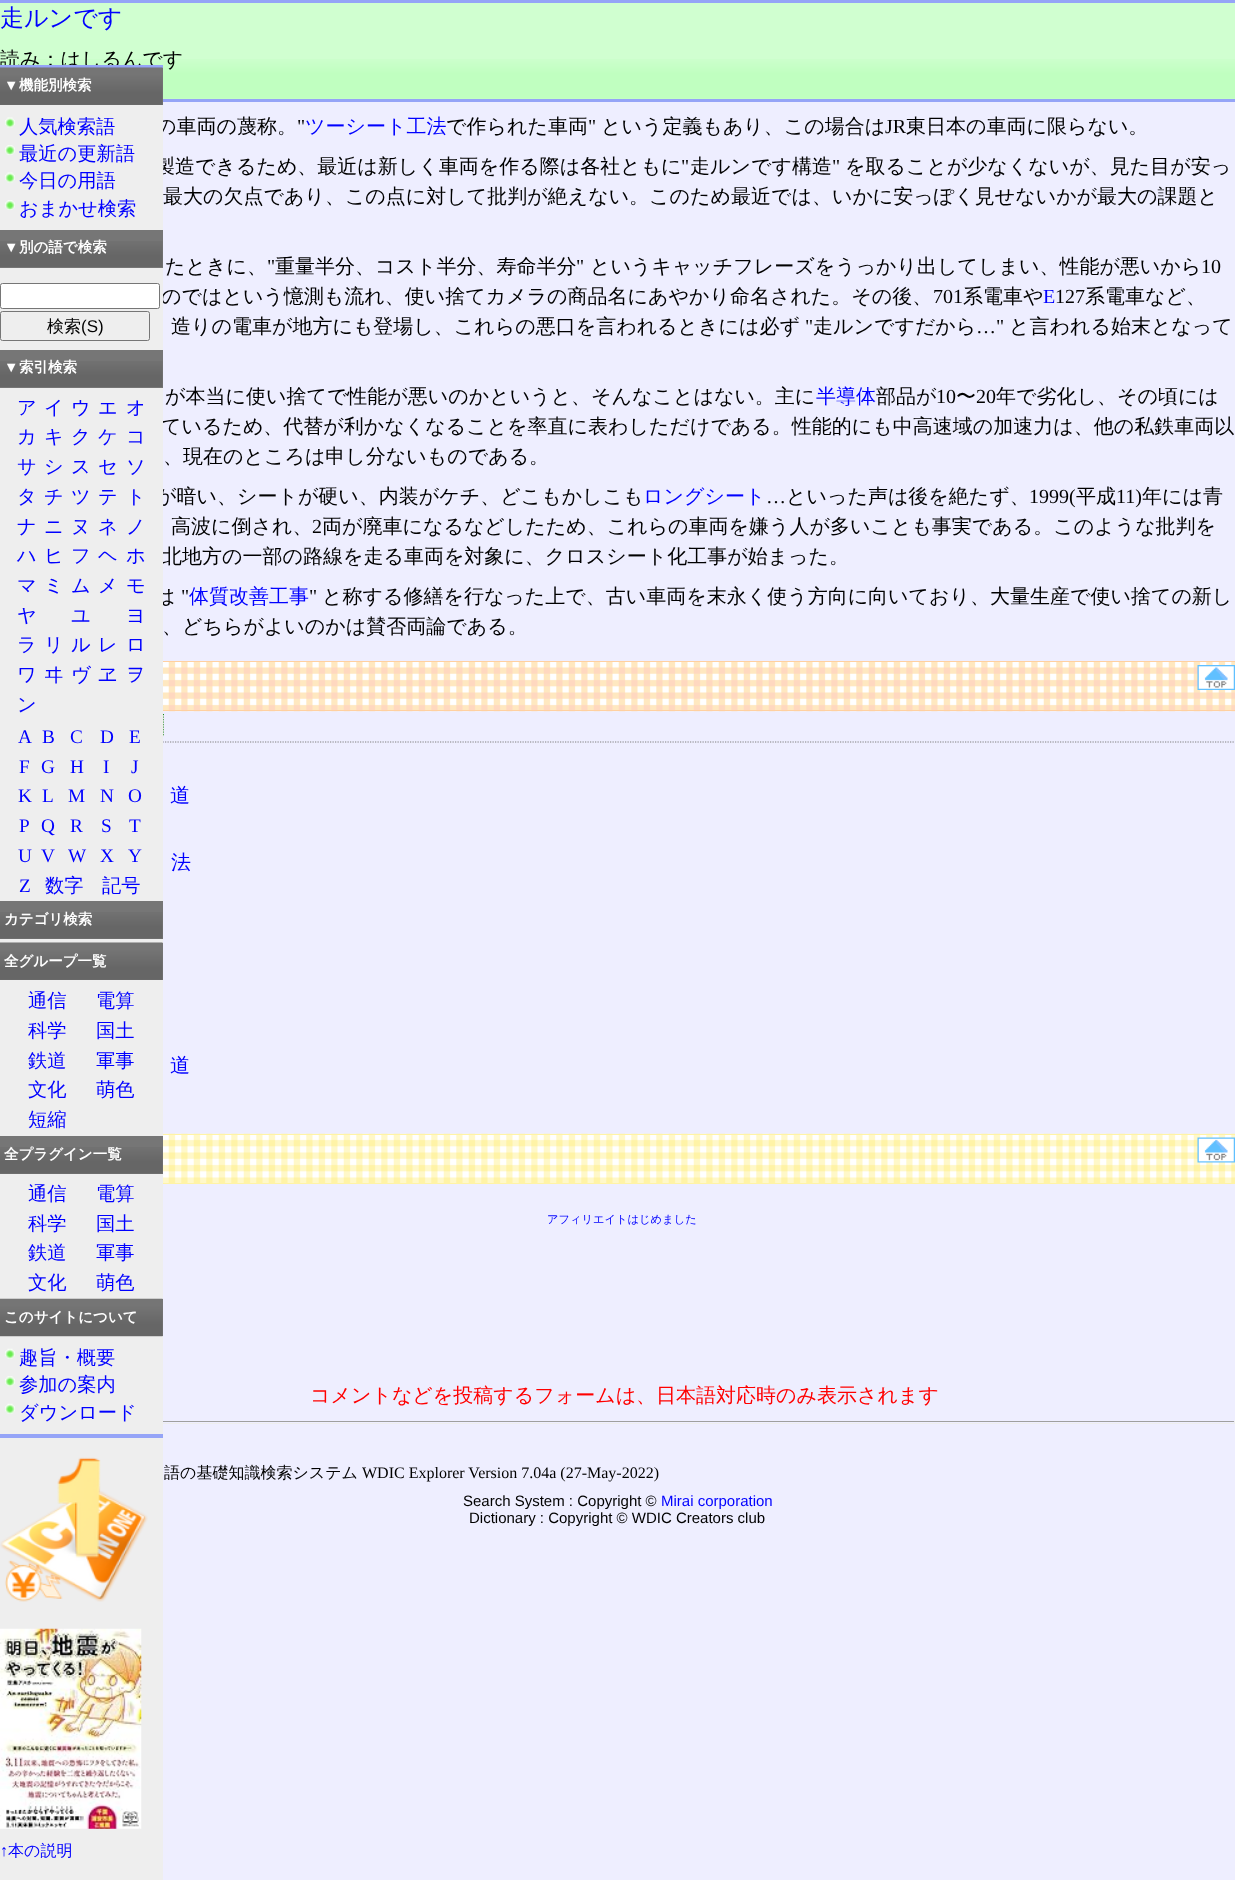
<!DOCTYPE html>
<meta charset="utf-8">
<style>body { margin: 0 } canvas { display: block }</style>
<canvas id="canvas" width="1235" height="1880"></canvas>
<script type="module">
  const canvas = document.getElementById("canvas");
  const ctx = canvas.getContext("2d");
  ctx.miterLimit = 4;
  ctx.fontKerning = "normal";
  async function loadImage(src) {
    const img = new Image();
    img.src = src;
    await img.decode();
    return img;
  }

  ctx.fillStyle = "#eeeeff";
  ctx.fillRect(0, 0, 1235, 1880);
  ctx.fillStyle = "#d0ffd0";
  ctx.fillRect(0, 3, 1235, 96);
  ctx.drawImage(await loadImage("img1.png"), 0, 59, 1235, 40);
  ctx.fillStyle = "#95a4f7";
  ctx.fillRect(0, 0, 1235, 3);
  ctx.fillRect(163, 99, 1072, 3);
  ctx.font = "500 24px WenQuanYi Zen Hei";
  ctx.fillStyle = "#0000ff";
  ctx.fillText("走ルンです", 0, 26);
  ctx.font = "500 20px WenQuanYi Zen Hei";
  ctx.fillStyle = "#000000";
  ctx.fillText("読み：はしるんです", 0, 66);
  ctx.fillText("の車両の蔑称。", 156, 133);
  ctx.fillText("製造できるため、最近は新しく車両を作る際は各社ともに", 155, 173);
  ctx.fillText("のではという憶測も流れ、使い捨てカメラの商品名にあやかり命名された。その後、", 161, 303);
  ctx.fillText("ているため、代替が利かなくなることを率直に表わしただけである。性能的にも中高速域の加速力は、他の私鉄車両以", 161, 433);
  ctx.fillText("が暗い、シートが硬い、内装がケチ、どこもかしこも", 156, 503);
  ctx.fillText("北地方の一部の路線を走る車両を対象に、クロスシート化工事が始まった。", 162, 563);
  ctx.fillText("は", 155, 603);
  ctx.beginPath();
  ctx.moveTo(0, 742);
  ctx.lineTo(1235, 742);
  ctx.strokeStyle = "#808080";
  ctx.lineWidth = 1.2;
  ctx.setLineDash([1.25, 1.25]);
  ctx.stroke();
  ctx.drawImage(await loadImage("img15.png"), 163, 713, 1, 24);
  ctx.beginPath();
  ctx.moveTo(0, 714.5);
  ctx.lineTo(164, 714.5);
  ctx.strokeStyle = "#008000";
  ctx.stroke();
  ctx.beginPath();
  ctx.moveTo(163, 714);
  ctx.lineTo(163, 736);
  ctx.stroke();
  ctx.fillStyle = "#eeeeee";
  ctx.fillRect(0, 105, 163, 1775);
  ctx.fillStyle = "#95a4f7";
  ctx.fillRect(0, 65, 163, 3);
  ctx.fillRect(0, 1434, 163, 4);
  ctx.fillStyle = "#767676";
  ctx.fillRect(162, 68, 1, 37);
  ctx.drawImage(await loadImage("img2.png"), 0, 67, 163, 38);
  ctx.font = "bold 14.5px Liberation Serif";
  ctx.fillStyle = "#ffffff";
  ctx.fillText("▼", 4, 90);
  ctx.font = "bold 14.5px WenQuanYi Zen Hei";
  ctx.fillText("機能別検索", 19, 90);
  ctx.drawImage(await loadImage("img3.png"), 5, 117, 10, 11);
  ctx.font = "500 19.25px WenQuanYi Zen Hei";
  ctx.fillStyle = "#0000ff";
  ctx.fillText("人気検索語", 19, 133);
  ctx.drawImage(await loadImage("img4.png"), 5, 145, 10, 10);
  ctx.fillText("最近の更新語", 19, 160);
  ctx.drawImage(await loadImage("img3.png"), 5, 172, 10, 11);
  ctx.fillText("今日の用語", 19, 187);
  ctx.drawImage(await loadImage("img4.png"), 5, 200, 10, 10);
  ctx.fillText("おまかせ検索", 19, 215);
  ctx.fillStyle = "#767676";
  ctx.fillRect(0, 230, 163, 38);
  ctx.drawImage(await loadImage("img5.png"), 0, 241, 163, 26);
  ctx.font = "bold 14.5px Liberation Serif";
  ctx.fillStyle = "#ffffff";
  ctx.fillText("▼", 4, 252);
  ctx.font = "bold 14.5px WenQuanYi Zen Hei";
  ctx.fillText("別の語で検索", 19, 252);
  ctx.beginPath();
  ctx.roundRect(0.5, 283.5, 159, 25, 2);
  ctx.fill();
  ctx.strokeStyle = "#767676";
  ctx.lineWidth = 1;
  ctx.setLineDash([]);
  ctx.stroke();
  ctx.beginPath();
  ctx.roundRect(0.5, 311.5, 149, 29, 2);
  ctx.stroke();
  ctx.font = "500 17px WenQuanYi Zen Hei";
  ctx.fillStyle = "#000000";
  ctx.fillText("検索", 47, 332);
  ctx.font = "17px Liberation Sans";
  ctx.fillText("(S)", 81, 332);
  ctx.fillStyle = "#767676";
  ctx.fillRect(0, 350, 163, 38);
  ctx.drawImage(await loadImage("img5.png"), 0, 361, 163, 26);
  ctx.font = "bold 14.5px Liberation Serif";
  ctx.fillStyle = "#ffffff";
  ctx.fillText("▼", 4, 372);
  ctx.font = "bold 14.5px WenQuanYi Zen Hei";
  ctx.fillText("索引検索", 19, 372);
  ctx.font = "500 19.25px WenQuanYi Zen Hei";
  ctx.fillStyle = "#0000ff";
  ctx.fillText("ア", 17, 414);
  ctx.fillText("イ", 44, 414);
  ctx.fillText("ウ", 71, 414);
  ctx.fillText("エ", 98, 414);
  ctx.fillText("オ", 126, 414);
  ctx.fillText("カ", 17, 443);
  ctx.fillText("キ", 44, 443);
  ctx.fillText("ク", 71, 443);
  ctx.fillText("ケ", 98, 443);
  ctx.fillText("コ", 126, 443);
  ctx.fillText("サ", 17, 473);
  ctx.fillText("シ", 44, 473);
  ctx.fillText("ス", 71, 473);
  ctx.fillText("セ", 98, 473);
  ctx.fillText("ソ", 126, 473);
  ctx.fillText("タ", 17, 503);
  ctx.fillText("チ", 44, 503);
  ctx.fillText("ツ", 71, 503);
  ctx.fillText("テ", 98, 503);
  ctx.fillText("ト", 126, 503);
  ctx.fillText("ナ", 17, 533);
  ctx.fillText("ニ", 44, 533);
  ctx.fillText("ヌ", 71, 533);
  ctx.fillText("ネ", 98, 533);
  ctx.fillText("ノ", 126, 533);
  ctx.fillText("ハ", 17, 562);
  ctx.fillText("ヒ", 44, 562);
  ctx.fillText("フ", 71, 562);
  ctx.fillText("ヘ", 98, 562);
  ctx.fillText("ホ", 126, 562);
  ctx.fillText("マ", 17, 592);
  ctx.fillText("ミ", 44, 592);
  ctx.fillText("ム", 71, 592);
  ctx.fillText("メ", 98, 592);
  ctx.fillText("モ", 126, 592);
  ctx.fillText("ヤ", 17, 622);
  ctx.fillText("ユ", 71, 622);
  ctx.fillText("ヨ", 126, 622);
  ctx.fillText("ラ", 17, 651);
  ctx.fillText("リ", 44, 651);
  ctx.fillText("ル", 71, 651);
  ctx.fillText("レ", 98, 651);
  ctx.fillText("ロ", 126, 651);
  ctx.fillText("ワ", 17, 681);
  ctx.fillText("ヰ", 44, 681);
  ctx.fillText("ヴ", 71, 681);
  ctx.fillText("ヱ", 98, 681);
  ctx.fillText("ヲ", 126, 681);
  ctx.fillText("ン", 17, 711);
  ctx.font = "19.25px Liberation Serif";
  ctx.fillText("A", 18, 743);
  ctx.fillText("B", 42, 743);
  ctx.fillText("C", 70, 743);
  ctx.fillText("D", 100, 743);
  ctx.fillText("E", 129, 743);
  ctx.fillText("F", 19, 773);
  ctx.fillText("G", 41, 773);
  ctx.fillText("H", 70, 773);
  ctx.fillText("I", 103, 773);
  ctx.fillText("J", 131, 773);
  ctx.fillText("K", 18, 802);
  ctx.fillText("L", 42, 802);
  ctx.fillText("M", 68, 802);
  ctx.fillText("N", 100, 802);
  ctx.fillText("O", 128, 802);
  ctx.fillText("P", 19, 832);
  ctx.fillText("Q", 41, 832);
  ctx.fillText("R", 70, 832);
  ctx.fillText("S", 101, 832);
  ctx.fillText("T", 129, 832);
  ctx.fillText("U", 18, 862);
  ctx.fillText("V", 41, 862);
  ctx.fillText("W", 68, 862);
  ctx.fillText("X", 100, 862);
  ctx.fillText("Y", 128, 862);
  ctx.fillText("Z", 19, 892);
  ctx.font = "500 19.25px WenQuanYi Zen Hei";
  ctx.fillText("数字", 45, 892);
  ctx.fillText("記号", 102, 892);
  ctx.fillStyle = "#767676";
  ctx.fillRect(0, 901, 163, 38);
  ctx.drawImage(await loadImage("img6.png"), 0, 912, 163, 27);
  ctx.font = "bold 14.5px WenQuanYi Zen Hei";
  ctx.fillStyle = "#ffffff";
  ctx.fillText("カテゴリ検索", 4, 924);
  ctx.fillStyle = "#767676";
  ctx.fillRect(162, 943, 1, 37);
  ctx.drawImage(await loadImage("img7.png"), 0, 942, 163, 38);
  ctx.fillStyle = "#ffffff";
  ctx.fillText("全グループ一覧", 4, 966);
  ctx.font = "500 19.25px WenQuanYi Zen Hei";
  ctx.fillStyle = "#0000ff";
  ctx.fillText("通信", 28, 1007);
  ctx.fillText("電算", 96, 1007);
  ctx.fillText("科学", 28, 1037);
  ctx.fillText("国土", 96, 1037);
  ctx.fillText("鉄道", 28, 1067);
  ctx.fillText("軍事", 96, 1067);
  ctx.fillText("文化", 28, 1096);
  ctx.fillText("萌色", 96, 1096);
  ctx.fillText("短縮", 28, 1126);
  ctx.fillStyle = "#767676";
  ctx.fillRect(0, 1136, 163, 38);
  ctx.drawImage(await loadImage("img6.png"), 0, 1147, 163, 27);
  ctx.font = "bold 14.5px WenQuanYi Zen Hei";
  ctx.fillStyle = "#ffffff";
  ctx.fillText("全プラグイン一覧", 4, 1159);
  ctx.font = "500 19.25px WenQuanYi Zen Hei";
  ctx.fillStyle = "#0000ff";
  ctx.fillText("通信", 28, 1200);
  ctx.fillText("電算", 96, 1200);
  ctx.fillText("科学", 28, 1230);
  ctx.fillText("国土", 96, 1230);
  ctx.fillText("鉄道", 28, 1259);
  ctx.fillText("軍事", 96, 1259);
  ctx.fillText("文化", 28, 1289);
  ctx.fillText("萌色", 96, 1289);
  ctx.fillStyle = "#767676";
  ctx.fillRect(162, 1299, 1, 37);
  ctx.drawImage(await loadImage("img8.png"), 0, 1298, 163, 39);
  ctx.font = "bold 14.5px WenQuanYi Zen Hei";
  ctx.fillStyle = "#ffffff";
  ctx.fillText("このサイトについて", 4, 1322);
  ctx.drawImage(await loadImage("img9.png"), 5, 1348, 10, 11);
  ctx.font = "500 19.25px WenQuanYi Zen Hei";
  ctx.fillStyle = "#0000ff";
  ctx.fillText("趣旨・概要", 19, 1364);
  ctx.drawImage(await loadImage("img10.png"), 5, 1376, 10, 11);
  ctx.fillText("参加の案内", 19, 1391);
  ctx.drawImage(await loadImage("img9.png"), 5, 1403, 10, 11);
  ctx.fillText("ダウンロード", 19, 1419);
  ctx.drawImage(await loadImage("img11.png"), 0, 1457, 148, 145);
  ctx.drawImage(await loadImage("img12.png"), 0, 1628, 142, 201);
  ctx.font = "16px Liberation Serif";
  ctx.fillText("↑", 0, 1856);
  ctx.font = "500 16px WenQuanYi Zen Hei";
  ctx.fillText("本の説明", 8, 1856);
  ctx.font = "20px Liberation Serif";
  ctx.fillStyle = "#000000";
  ctx.fillText("\"", 297, 133);
  ctx.font = "500 20px WenQuanYi Zen Hei";
  ctx.fillStyle = "#0000ff";
  ctx.fillText("ツーシート工法", 305, 133);
  ctx.fillStyle = "#000000";
  ctx.fillText("で作られた車両", 446, 133);
  ctx.font = "20px Liberation Serif";
  ctx.fillText("\"", 588, 133);
  ctx.font = "500 20px WenQuanYi Zen Hei";
  ctx.fillText("という定義もあり、この場合は", 601, 133);
  ctx.font = "20px Liberation Serif";
  ctx.fillText("JR", 885, 133);
  ctx.font = "500 20px WenQuanYi Zen Hei";
  ctx.fillText("東日本の車両に限らない。", 906, 133);
  ctx.font = "20px Liberation Serif";
  ctx.fillText("\"", 681, 173);
  ctx.font = "500 20px WenQuanYi Zen Hei";
  ctx.fillText("走ルンです構造", 690, 173);
  ctx.font = "20px Liberation Serif";
  ctx.fillText("\"", 832, 173);
  ctx.font = "500 20px WenQuanYi Zen Hei";
  ctx.fillText("を取ることが少なくないが、見た目が安っ", 845, 173);
  ctx.fillText("最大の欠点であり、この点に対して批判が絶えない。このため最近では、いかに安っぽく見せないかが最大の課題と", 163, 203);
  ctx.fillText("たときに、", 165, 273);
  ctx.font = "20px Liberation Serif";
  ctx.fillText("\"", 267, 273);
  ctx.font = "500 20px WenQuanYi Zen Hei";
  ctx.fillText("重量半分、コスト半分、寿命半分", 275, 273);
  ctx.font = "20px Liberation Serif";
  ctx.fillText("\"", 576, 273);
  ctx.font = "500 20px WenQuanYi Zen Hei";
  ctx.fillText("というキャッチフレーズをうっかり出してしまい、性能が悪いから", 590, 273);
  ctx.font = "20px Liberation Serif";
  ctx.fillText("10", 1201, 273);
  ctx.fillText("701", 933, 303);
  ctx.font = "500 20px WenQuanYi Zen Hei";
  ctx.fillText("系電車や", 963, 303);
  ctx.font = "20px Liberation Serif";
  ctx.fillStyle = "#0000ff";
  ctx.fillText("E", 1043, 303);
  ctx.fillStyle = "#000000";
  ctx.fillText("127", 1055, 303);
  ctx.font = "500 20px WenQuanYi Zen Hei";
  ctx.fillText("系電車など、", 1085, 303);
  ctx.fillText("造りの電車が地方にも登場し、これらの悪口を言われるときには必ず", 171, 333);
  ctx.font = "20px Liberation Serif";
  ctx.fillText("\"", 805, 333);
  ctx.font = "500 20px WenQuanYi Zen Hei";
  ctx.fillText("走ルンですだから", 813, 333);
  ctx.font = "20px Liberation Serif";
  ctx.fillText("…\"", 976, 333);
  ctx.font = "500 20px WenQuanYi Zen Hei";
  ctx.fillText("と言われる始末となって", 1009, 333);
  ctx.fillText("が本当に使い捨てで性能が悪いのかというと、そんなことはない。主に", 165, 403);
  ctx.fillStyle = "#0000ff";
  ctx.fillText("半導体", 816, 403);
  ctx.fillStyle = "#000000";
  ctx.fillText("部品が", 876, 403);
  ctx.font = "20px Liberation Serif";
  ctx.fillText("10", 936, 403);
  ctx.font = "500 20px WenQuanYi Zen Hei";
  ctx.fillText("〜", 956, 403);
  ctx.font = "20px Liberation Serif";
  ctx.fillText("20", 976, 403);
  ctx.font = "500 20px WenQuanYi Zen Hei";
  ctx.fillText("年で劣化し、その頃には", 996, 403);
  ctx.fillText("、現在のところは申し分ないものである。", 163, 463);
  ctx.fillStyle = "#0000ff";
  ctx.fillText("ロングシート", 643, 503);
  ctx.font = "20px Liberation Serif";
  ctx.fillStyle = "#000000";
  ctx.fillText("…", 766, 503);
  ctx.font = "500 20px WenQuanYi Zen Hei";
  ctx.fillText("といった声は後を絶たず、", 786, 503);
  ctx.font = "20px Liberation Serif";
  ctx.fillText("1999(", 1029, 503);
  ctx.font = "500 20px WenQuanYi Zen Hei";
  ctx.fillText("平成", 1076, 503);
  ctx.font = "20px Liberation Serif";
  ctx.fillText("11)", 1116, 503);
  ctx.font = "500 20px WenQuanYi Zen Hei";
  ctx.fillText("年には青", 1142, 503);
  ctx.fillText("高波に倒され、", 171, 533);
  ctx.font = "20px Liberation Serif";
  ctx.fillText("2", 312, 533);
  ctx.font = "500 20px WenQuanYi Zen Hei";
  ctx.fillText("両が廃車になるなどしたため、これらの車両を嫌う人が多いことも事実である。このような批判を", 322, 533);
  ctx.font = "20px Liberation Serif";
  ctx.fillText("\"", 181, 603);
  ctx.font = "500 20px WenQuanYi Zen Hei";
  ctx.fillStyle = "#0000ff";
  ctx.fillText("体質改善工事", 189, 603);
  ctx.font = "20px Liberation Serif";
  ctx.fillStyle = "#000000";
  ctx.fillText("\"", 309, 603);
  ctx.font = "500 20px WenQuanYi Zen Hei";
  ctx.fillText("と称する修繕を行なった上で、古い車両を末永く使う方向に向いており、大量生産で使い捨ての新し", 322, 603);
  ctx.fillText("、どちらがよいのかは賛否両論である。", 162, 633);
  ctx.drawImage(await loadImage("img13.png"), 163, 662, 1072, 50);
  ctx.fillStyle = "#ffd0a0";
  ctx.fillRect(163, 661, 1072, 1);
  ctx.fillRect(163, 710, 1072, 1);
  ctx.drawImage(await loadImage("img14.png"), 1197, 665, 38, 25);
  ctx.fillStyle = "#0000ff";
  ctx.fillText("道", 170, 802);
  ctx.fillText("法", 171, 869);
  ctx.fillText("道", 170, 1072);
  ctx.drawImage(await loadImage("img16.png"), 163, 1133, 1072, 50);
  ctx.fillStyle = "#fff3a6";
  ctx.fillRect(163, 1134, 1072, 1);
  ctx.fillRect(163, 1183, 1072, 1);
  ctx.drawImage(await loadImage("img17.png"), 1197, 1137, 38, 26);
  ctx.font = "500 11.25px WenQuanYi Zen Hei";
  ctx.fillStyle = "#0000ff";
  ctx.fillText("アフィリエイトはじめました", 547, 1223);
  ctx.font = "500 20px WenQuanYi Zen Hei";
  ctx.fillStyle = "#ff0000";
  ctx.fillText("コメントなどを投稿するフォームは、日本語対応時のみ表示されます", 310, 1402);
  ctx.fillStyle = "#9f9f9f";
  ctx.fillRect(163, 1421, 1072, 1);
  ctx.fillStyle = "#eeeeee";
  ctx.fillRect(1234, 1421, 1, 3);
  ctx.fillRect(163, 1423, 1072, 1);
  ctx.font = "500 16px WenQuanYi Zen Hei";
  ctx.fillStyle = "#000000";
  ctx.fillText("語の基礎知識検索システム", 164, 1478);
  ctx.font = "16px Liberation Serif";
  ctx.fillText("WDIC Explorer Version 7.04a (27-May-2022)", 362, 1478);
  ctx.font = "15px Liberation Sans";
  ctx.fillText("Search System : Copyright ©", 463, 1506);
  ctx.fillStyle = "#0000ff";
  ctx.fillText("Mirai corporation", 661, 1506);
  ctx.fillStyle = "#000000";
  ctx.fillText("Dictionary : Copyright © WDIC Creators club", 469, 1523);
</script>
